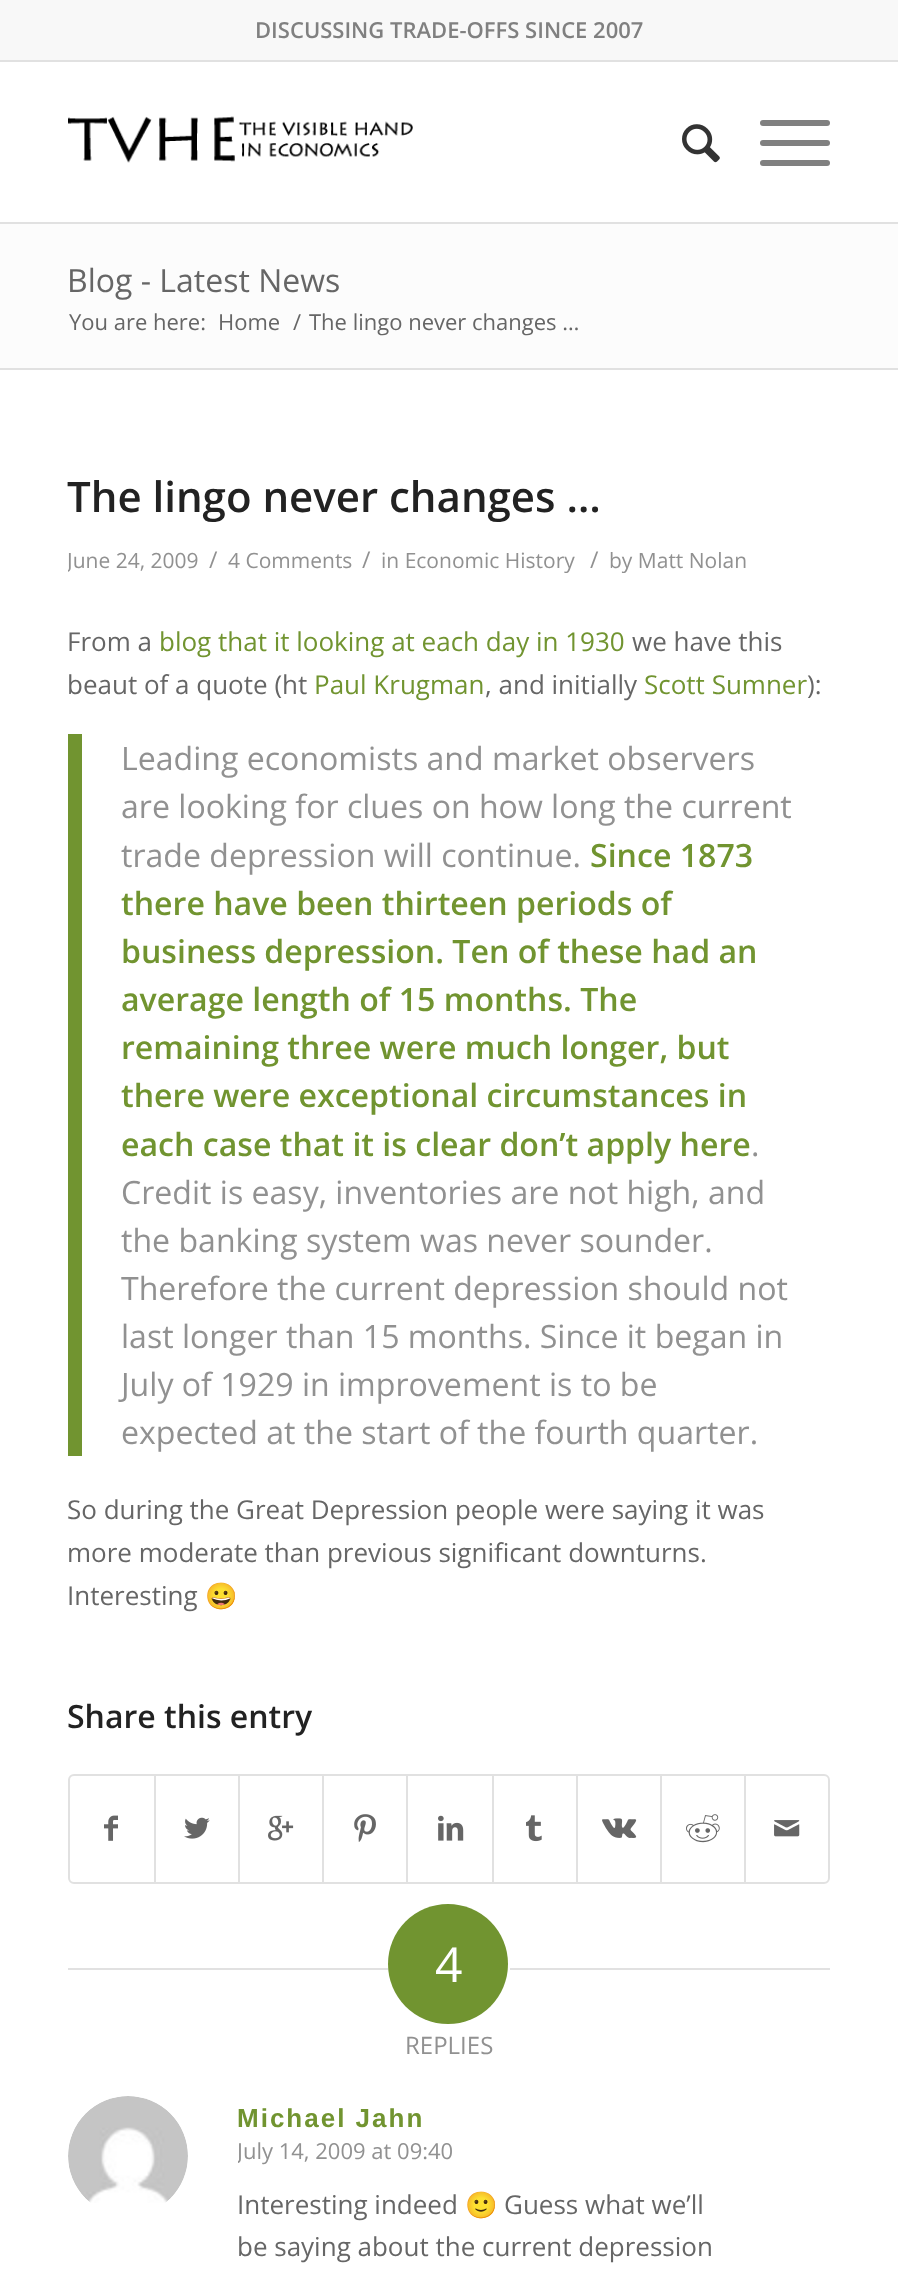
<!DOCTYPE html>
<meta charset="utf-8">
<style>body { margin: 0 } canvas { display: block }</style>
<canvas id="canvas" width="898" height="2269"></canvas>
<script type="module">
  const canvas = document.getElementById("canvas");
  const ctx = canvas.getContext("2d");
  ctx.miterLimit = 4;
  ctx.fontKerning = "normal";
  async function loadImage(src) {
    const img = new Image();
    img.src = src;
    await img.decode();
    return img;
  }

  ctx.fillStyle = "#ffffff";
  ctx.fillRect(0, 0, 898, 2269);
  ctx.fillStyle = "#f8f8f8";
  ctx.fillRect(0, 0, 898, 60);
  ctx.fillStyle = "#e1e1e1";
  ctx.fillRect(0, 60, 898, 2);
  ctx.font = "600 22px Open Sans";
  ctx.fillStyle = "#808080";
  ctx.fillText("DISCUSSING TRADE-OFFS SINCE 2007", 255, 38);
  ctx.fillStyle = "#e1e1e1";
  ctx.fillRect(0, 222, 898, 2);
  ctx.drawImage(await loadImage("img1.png"), 68, 116, 345, 47);
  ctx.drawImage(await loadImage("img2.png"), 682, 124, 38, 39);
  ctx.fillStyle = "#808080";
  ctx.beginPath();
  ctx.roundRect(760, 140, 70, 6, 3);
  ctx.fill();
  ctx.beginPath();
  ctx.roundRect(760, 120, 70, 6, 3);
  ctx.fill();
  ctx.beginPath();
  ctx.roundRect(760, 160, 70, 6, 3);
  ctx.fill();
  ctx.fillStyle = "#fcfcfc";
  ctx.fillRect(0, 224, 898, 144);
  ctx.font = "32px Open Sans";
  ctx.fillStyle = "#666666";
  ctx.fillText("Blog - Latest News", 67, 292);
  ctx.font = "22px Open Sans";
  ctx.fillText("You are here:", 69, 330);
  ctx.fillText("Home", 218, 330);
  ctx.fillText("/", 293, 330);
  ctx.fillText("The lingo never changes …", 309, 330);
  ctx.fillStyle = "#e1e1e1";
  ctx.fillRect(0, 368, 898, 2);
  ctx.font = "600 42px Open Sans";
  ctx.fillStyle = "#222222";
  ctx.fillText("The lingo never changes …", 67, 512);
  ctx.save();
  ctx.beginPath();
  ctx.rect(68, 470, 762, 1434);
  ctx.clip();
  ctx.font = "21px Open Sans";
  ctx.fillStyle = "#919191";
  ctx.fillText("June 24, 2009", 67, 568);
  ctx.restore();
  ctx.font = "23px Open Sans";
  ctx.fillStyle = "#919191";
  ctx.fillText("/", 209, 568);
  ctx.font = "21px Open Sans";
  ctx.fillText("4 Comments", 228, 568);
  ctx.font = "23px Open Sans";
  ctx.fillText("/", 362, 568);
  ctx.font = "21px Open Sans";
  ctx.fillText("in Economic History", 381, 568);
  ctx.font = "23px Open Sans";
  ctx.fillText("/", 590, 568);
  ctx.font = "21px Open Sans";
  ctx.fillText("by Matt Nolan", 609, 568);
  ctx.font = "26px Open Sans";
  ctx.fillStyle = "#666666";
  ctx.fillText("From a", 67, 651);
  ctx.fillStyle = "#719430";
  ctx.fillText("blog that it looking at each day in 1930", 159, 651);
  ctx.fillStyle = "#666666";
  ctx.fillText("we have this", 632, 651);
  ctx.fillText("beaut of a quote (ht", 67, 694);
  ctx.fillStyle = "#719430";
  ctx.fillText("Paul Krugman", 314, 694);
  ctx.fillStyle = "#666666";
  ctx.fillText(", and initially", 485, 694);
  ctx.fillStyle = "#719430";
  ctx.fillText("Scott Sumner", 644, 694);
  ctx.fillStyle = "#666666";
  ctx.fillText("):", 807, 694);
  ctx.fillStyle = "#719430";
  ctx.fillRect(68, 734, 14, 722);
  ctx.font = "32.1px Open Sans";
  ctx.fillStyle = "#919191";
  ctx.fillText("Leading economists and market observers", 121, 770);
  ctx.fillText("are looking for clues on how long the current", 121, 818);
  ctx.fillText("trade depression will continue.", 121, 867);
  ctx.font = "600 32.1px Open Sans";
  ctx.fillStyle = "#719430";
  ctx.fillText("Since 1873", 590, 867);
  ctx.fillText("there have been thirteen periods of", 121, 915);
  ctx.fillText("business depression. Ten of these had an", 121, 963);
  ctx.fillText("average length of 15 months. The", 121, 1011);
  ctx.fillText("remaining three were much longer, but", 121, 1059);
  ctx.fillText("there were exceptional circumstances in", 121, 1107);
  ctx.fillText("each case that it is clear don’t apply here", 121, 1156);
  ctx.font = "32.1px Open Sans";
  ctx.fillStyle = "#919191";
  ctx.fillText(".", 751, 1156);
  ctx.fillText("Credit is easy, inventories are not high, and", 121, 1204);
  ctx.fillText("the banking system was never sounder.", 121, 1252);
  ctx.fillText("Therefore the current depression should not", 121, 1300);
  ctx.fillText("last longer than 15 months. Since it began in", 121, 1348);
  ctx.fillText("July of 1929 in improvement is to be", 121, 1396);
  ctx.fillText("expected at the start of the fourth quarter.", 121, 1444);
  ctx.font = "26px Open Sans";
  ctx.fillStyle = "#666666";
  ctx.fillText("So during the Great Depression people were saying it was", 67, 1519);
  ctx.fillText("more moderate than previous significant downturns.", 67, 1562);
  ctx.fillText("Interesting", 67, 1605);
  ctx.font = "26px Noto Color Emoji";
  ctx.fillText("😀", 205, 1605);
  ctx.font = "600 32px Open Sans";
  ctx.fillStyle = "#222222";
  ctx.fillText("Share this entry", 67, 1728);
  ctx.beginPath();
  ctx.roundRect(69, 1775, 760, 108, 5);
  ctx.strokeStyle = "#e1e1e1";
  ctx.lineWidth = 2;
  ctx.stroke();
  ctx.drawImage(await loadImage("img3.png"), 104, 1815, 14, 26);
  ctx.fillStyle = "#e1e1e1";
  ctx.fillRect(154, 1776, 2, 106);
  ctx.drawImage(await loadImage("img4.png"), 184, 1817, 26, 22);
  ctx.fillRect(238, 1776, 2, 106);
  ctx.drawImage(await loadImage("img5.png"), 268, 1815, 26, 26);
  ctx.fillRect(322, 1776, 2, 106);
  ctx.drawImage(await loadImage("img6.png"), 354, 1814, 22, 28);
  ctx.fillRect(406, 1776, 2, 106);
  ctx.drawImage(await loadImage("img7.png"), 438, 1815, 26, 26);
  ctx.fillRect(492, 1776, 2, 106);
  ctx.drawImage(await loadImage("img8.png"), 526, 1815, 16, 27);
  ctx.fillRect(576, 1776, 2, 106);
  ctx.drawImage(await loadImage("img9.png"), 602, 1818, 35, 20);
  ctx.fillRect(660, 1776, 2, 106);
  ctx.drawImage(await loadImage("img10.png"), 686, 1814, 34, 29);
  ctx.fillRect(744, 1776, 2, 106);
  ctx.drawImage(await loadImage("img11.png"), 774, 1820, 26, 17);
  ctx.fillRect(68, 1968, 320, 2);
  ctx.fillStyle = "#719430";
  ctx.beginPath();
  ctx.arc(448, 1964, 60, 0, Math.PI * 2);
  ctx.fill();
  ctx.font = "48px Open Sans";
  ctx.fillStyle = "#ffffff";
  ctx.fillText("4", 435, 1982);
  ctx.fillStyle = "#e1e1e1";
  ctx.fillRect(510, 1968, 320, 2);
  ctx.font = "24px Open Sans";
  ctx.fillStyle = "#919191";
  ctx.fillText("REPLIES", 405, 2054);
  ctx.drawImage(await loadImage("img12.png"), 68, 2096, 120, 107);
  ctx.letterSpacing = "2px";
  ctx.font = "bold 26px Liberation Sans";
  ctx.fillStyle = "#719430";
  ctx.fillText("Michael Jahn", 237, 2127);
  ctx.save();
  ctx.beginPath();
  ctx.rect(238, 2096, 492, 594);
  ctx.clip();
  ctx.letterSpacing = "0px";
  ctx.font = "22px Open Sans";
  ctx.fillStyle = "#919191";
  ctx.fillText("July 14, 2009 at 09:40", 237, 2159);
  ctx.restore();
  ctx.letterSpacing = "0px";
  ctx.font = "26px Open Sans";
  ctx.fillStyle = "#666666";
  ctx.fillText("Interesting indeed", 237, 2214);
  ctx.font = "26px Noto Color Emoji";
  ctx.fillText("🙂", 465, 2214);
  ctx.font = "26px Open Sans";
  ctx.fillText("Guess what we’ll", 504, 2214);
  ctx.fillText("be saying about the current depression", 237, 2256);
</script>
